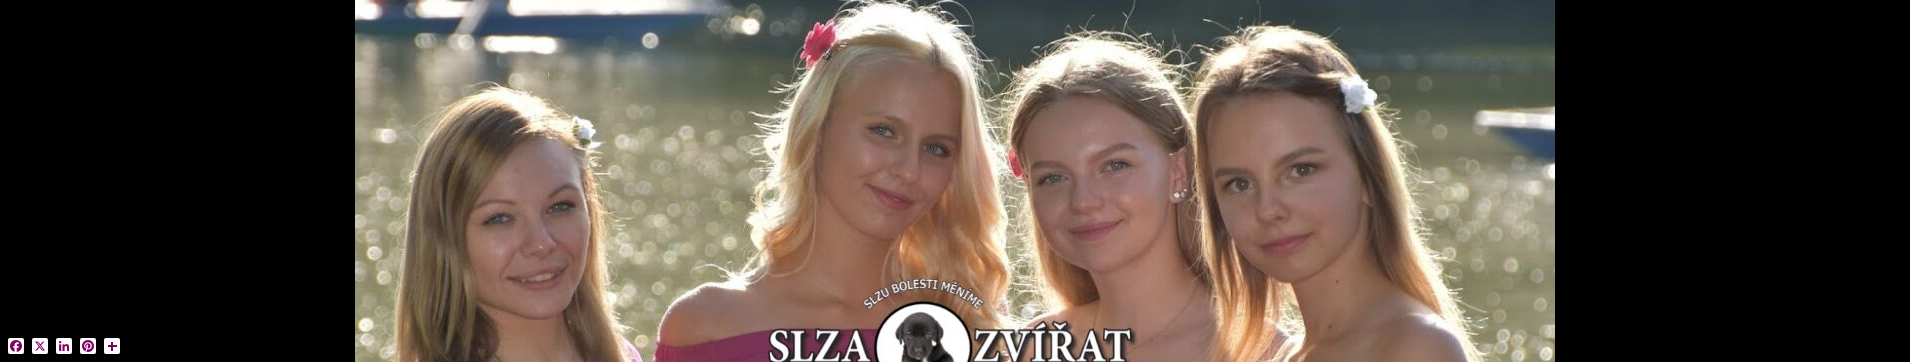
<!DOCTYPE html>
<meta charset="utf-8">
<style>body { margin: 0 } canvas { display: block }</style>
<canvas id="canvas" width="1910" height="362"></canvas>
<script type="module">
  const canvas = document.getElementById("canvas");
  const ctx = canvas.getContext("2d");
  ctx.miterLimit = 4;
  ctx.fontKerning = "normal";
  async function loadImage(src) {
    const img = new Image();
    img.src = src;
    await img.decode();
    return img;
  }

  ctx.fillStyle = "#000000";
  ctx.fillRect(0, 0, 1910, 362);
  ctx.fillStyle = "#ffffff";
  ctx.beginPath();
  ctx.roundRect(8, 338, 16, 16, 2);
  ctx.fill();
  ctx.drawImage(await loadImage("img1.png"), 10, 340, 12, 12);
  ctx.beginPath();
  ctx.roundRect(32, 338, 16, 16, 2);
  ctx.fill();
  ctx.drawImage(await loadImage("img2.png"), 35, 341, 10, 10);
  ctx.beginPath();
  ctx.roundRect(56, 338, 16, 16, 2);
  ctx.fill();
  ctx.drawImage(await loadImage("img3.png"), 59, 341, 11, 11);
  ctx.beginPath();
  ctx.roundRect(80, 338, 16, 16, 2);
  ctx.fill();
  ctx.drawImage(await loadImage("img4.png"), 82, 340, 12, 12);
  ctx.beginPath();
  ctx.roundRect(104, 338, 16, 16, 2);
  ctx.fill();
  ctx.fillStyle = "#800060";
  ctx.fillRect(111, 342, 2, 9);
  ctx.fillRect(108, 345, 9, 2);
  ctx.drawImage(await loadImage("img5.png"), 355, 0, 1200, 362);
</script>
